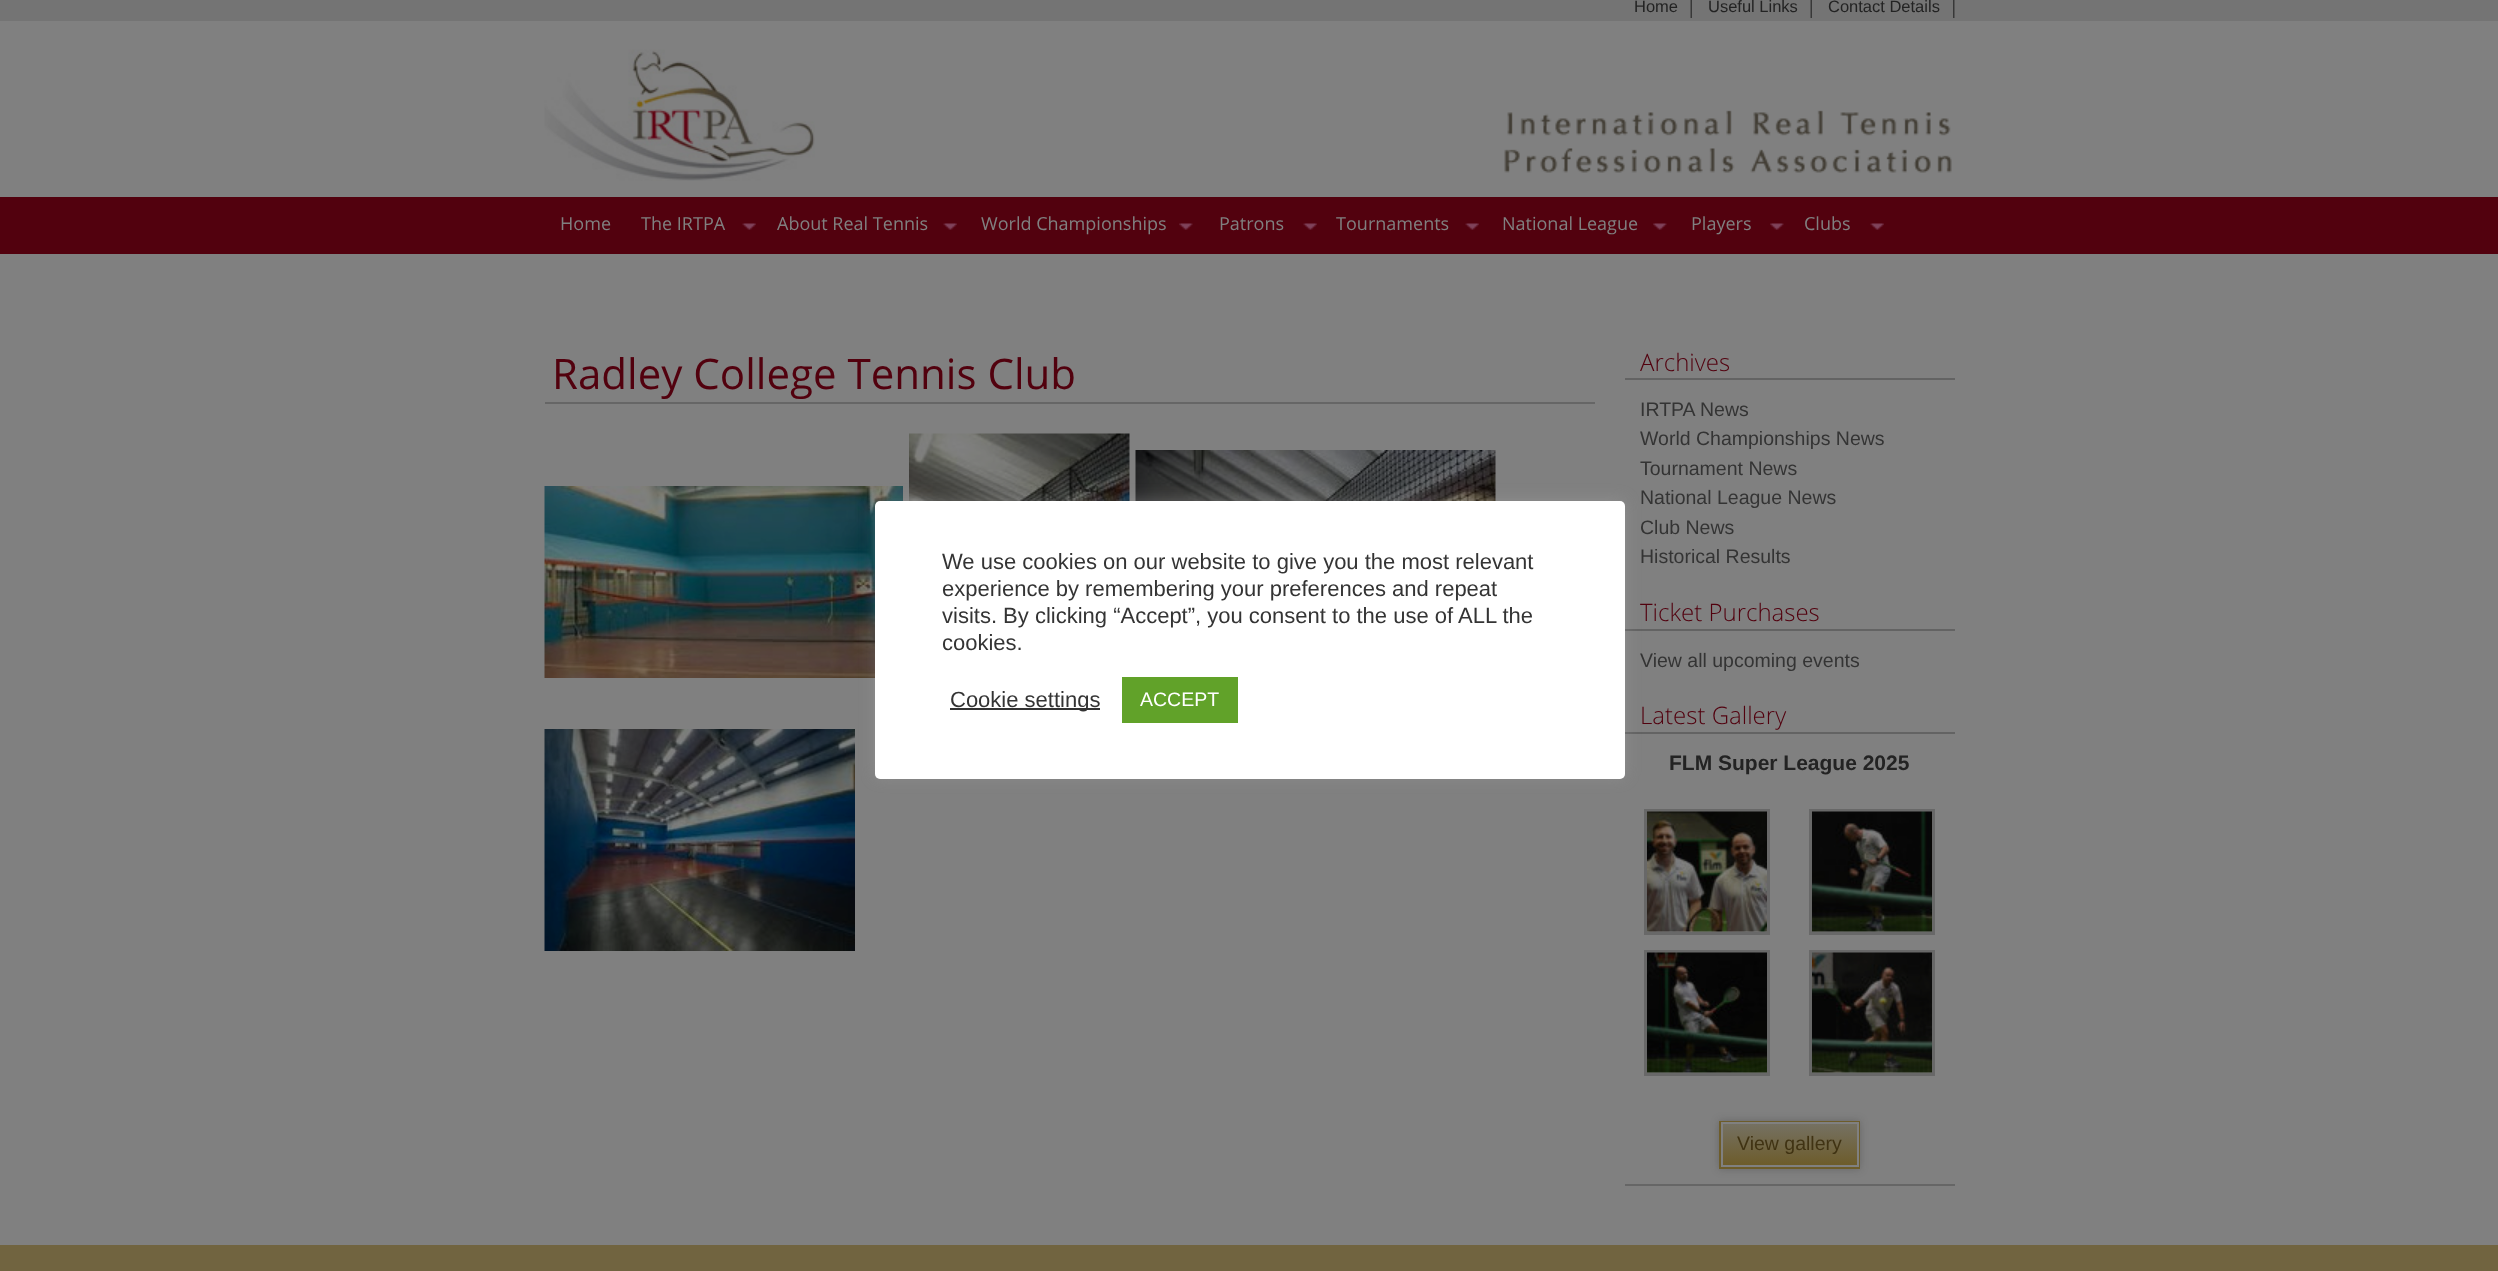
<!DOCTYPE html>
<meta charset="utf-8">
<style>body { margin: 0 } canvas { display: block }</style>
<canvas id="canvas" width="2498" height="1271"></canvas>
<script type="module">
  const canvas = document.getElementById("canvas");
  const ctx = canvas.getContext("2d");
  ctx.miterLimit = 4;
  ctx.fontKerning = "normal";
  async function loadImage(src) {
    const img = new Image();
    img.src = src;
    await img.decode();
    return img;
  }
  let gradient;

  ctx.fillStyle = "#808080";
  ctx.fillRect(0, 0, 2498, 1271);
  ctx.fillStyle = "#747474";
  ctx.fillRect(0, 0, 2498, 21);
  ctx.drawImage(await loadImage("img1.png"), 1690, 0, 2, 18);
  ctx.font = "16.5px Liberation Sans";
  ctx.fillStyle = "#232323";
  ctx.fillText("Home", 1634, 12);
  ctx.drawImage(await loadImage("img1.png"), 1810, 0, 2, 18);
  ctx.fillText("Useful Links", 1708, 12);
  ctx.drawImage(await loadImage("img2.png"), 1953, 0, 2, 18);
  ctx.fillText("Contact Details", 1828, 12);
  ctx.drawImage(await loadImage("img3.png"), 544, 49, 271, 132);
  ctx.drawImage(await loadImage("img4.png"), 1504, 110, 448, 63);
  ctx.fillStyle = "#52010e";
  ctx.fillRect(0, 197, 2498, 57);
  ctx.font = "18px Open Sans";
  ctx.fillStyle = "#808080";
  ctx.fillText("Home", 560, 230);
  ctx.drawImage(await loadImage("img5.png"), 742, 223, 14, 7);
  ctx.fillText("The IRTPA", 641, 230);
  ctx.drawImage(await loadImage("img6.png"), 943, 223, 14, 7);
  ctx.fillText("About Real Tennis", 777, 230);
  ctx.drawImage(await loadImage("img7.png"), 1179, 223, 14, 7);
  ctx.fillText("World Championships", 981, 230);
  ctx.drawImage(await loadImage("img5.png"), 1303, 223, 14, 7);
  ctx.fillText("Patrons", 1219, 230);
  ctx.drawImage(await loadImage("img5.png"), 1465, 223, 14, 7);
  ctx.fillText("Tournaments", 1336, 230);
  ctx.drawImage(await loadImage("img8.png"), 1653, 223, 14, 7);
  ctx.fillText("National League", 1502, 230);
  ctx.drawImage(await loadImage("img8.png"), 1770, 223, 14, 7);
  ctx.fillText("Players", 1691, 230);
  ctx.drawImage(await loadImage("img6.png"), 1870, 223, 14, 7);
  ctx.fillText("Clubs", 1804, 230);
  ctx.fillStyle = "#666666";
  ctx.fillRect(545, 402, 1050, 2);
  ctx.font = "42px Open Sans";
  ctx.fillStyle = "#52010e";
  ctx.fillText("Radley College Tennis Club", 552, 389);
  ctx.drawImage(await loadImage("img9.png"), 909, 433, 221, 68);
  ctx.drawImage(await loadImage("img10.png"), 1135, 450, 361, 51);
  ctx.drawImage(await loadImage("img11.png"), 544, 486, 359, 192);
  ctx.drawImage(await loadImage("img12.png"), 544, 729, 311, 222);
  ctx.fillStyle = "#636363";
  ctx.fillRect(1625, 378, 330, 2);
  ctx.font = "300 24px Open Sans";
  ctx.fillStyle = "#52010e";
  ctx.fillText("Archives", 1640, 371);
  ctx.font = "19.5px Liberation Sans";
  ctx.fillStyle = "#343434";
  ctx.fillText("IRTPA News", 1640, 416);
  ctx.fillText("World Championships News", 1640, 445);
  ctx.fillText("Tournament News", 1640, 475);
  ctx.fillText("National League News", 1640, 504);
  ctx.fillText("Club News", 1640, 534);
  ctx.fillText("Historical Results", 1640, 563);
  ctx.fillStyle = "#636363";
  ctx.fillRect(1625, 629, 330, 2);
  ctx.font = "300 24px Open Sans";
  ctx.fillStyle = "#52010e";
  ctx.fillText("Ticket Purchases", 1640, 621);
  ctx.font = "19.5px Liberation Sans";
  ctx.fillStyle = "#343434";
  ctx.fillText("View all upcoming events", 1640, 667);
  ctx.fillStyle = "#636363";
  ctx.fillRect(1625, 732, 330, 2);
  ctx.font = "300 24px Open Sans";
  ctx.fillStyle = "#52010e";
  ctx.fillText("Latest Gallery", 1640, 724);
  ctx.fillStyle = "#666666";
  ctx.fillRect(1625, 1184, 330, 2);
  ctx.font = "bold 21px Liberation Sans";
  ctx.fillStyle = "#232323";
  ctx.fillText("FLM Super League 2025", 1669, 770);
  ctx.strokeStyle = "#686868";
  ctx.lineWidth = 3;
  ctx.strokeRect(1645.5, 810.5, 123, 123);
  ctx.drawImage(await loadImage("img13.png"), 1647, 811, 120, 121);
  ctx.strokeRect(1810.5, 810.5, 123, 123);
  ctx.drawImage(await loadImage("img14.png"), 1812, 811, 120, 121);
  ctx.strokeRect(1645.5, 951.5, 123, 123);
  ctx.drawImage(await loadImage("img15.png"), 1647, 952, 120, 121);
  ctx.strokeRect(1810.5, 951.5, 123, 123);
  ctx.drawImage(await loadImage("img16.png"), 1812, 952, 120, 121);
  ctx.fillStyle = "rgba(25, 25, 25, 0.25)";
  ctx.filter = "blur(4px)";
  ctx.beginPath();
  ctx.rect(1719, 1121, 141, 48);
  ctx.fill();
  ctx.filter = "none";
  ctx.strokeStyle = "#6d5c2a";
  ctx.lineWidth = 2;
  ctx.strokeRect(1720, 1122, 139, 46);
  gradient = ctx.createLinearGradient(1790, 1124, 1790, 1166);
  gradient.addColorStop(0, "#757162");
  gradient.addColorStop(1, "#6d5c2a");
  ctx.fillStyle = gradient;
  ctx.fillRect(1723, 1124, 134, 41);
  ctx.strokeStyle = "#808080";
  ctx.strokeRect(1722, 1123, 136, 43);
  ctx.font = "19.5px Liberation Sans";
  ctx.fillStyle = "#403313";
  ctx.fillText("View gallery", 1737, 1150);
  ctx.fillStyle = "rgba(172, 171, 171, 0.3)";
  ctx.filter = "blur(7.5px)";
  ctx.beginPath();
  ctx.roundRect(875, 500, 750, 277, 5);
  ctx.fill();
  ctx.filter = "none";
  ctx.fillStyle = "#ffffff";
  ctx.beginPath();
  ctx.roundRect(875, 501, 750, 278, 5);
  ctx.fill();
  ctx.font = "22px Liberation Sans";
  ctx.fillStyle = "#343434";
  ctx.fillText("We use cookies on our website to give you the most relevant", 942, 569);
  ctx.fillText("experience by remembering your preferences and repeat", 942, 596);
  ctx.fillText("visits. By clicking “Accept”, you consent to the use of ALL the", 942, 623);
  ctx.fillText("cookies.", 942, 650);
  ctx.fillStyle = "#333333";
  ctx.fillRect(950, 708, 150, 2);
  ctx.fillStyle = "#343434";
  ctx.fillText("Cookie settings", 950, 707);
  ctx.fillStyle = "#61a229";
  ctx.fillRect(1122, 677, 116, 46);
  ctx.font = "19.5px Liberation Sans";
  ctx.fillStyle = "#ffffff";
  ctx.fillText("ACCEPT", 1140, 706);
  ctx.fillStyle = "#716440";
  ctx.fillRect(0, 1245, 2498, 26);
</script>
